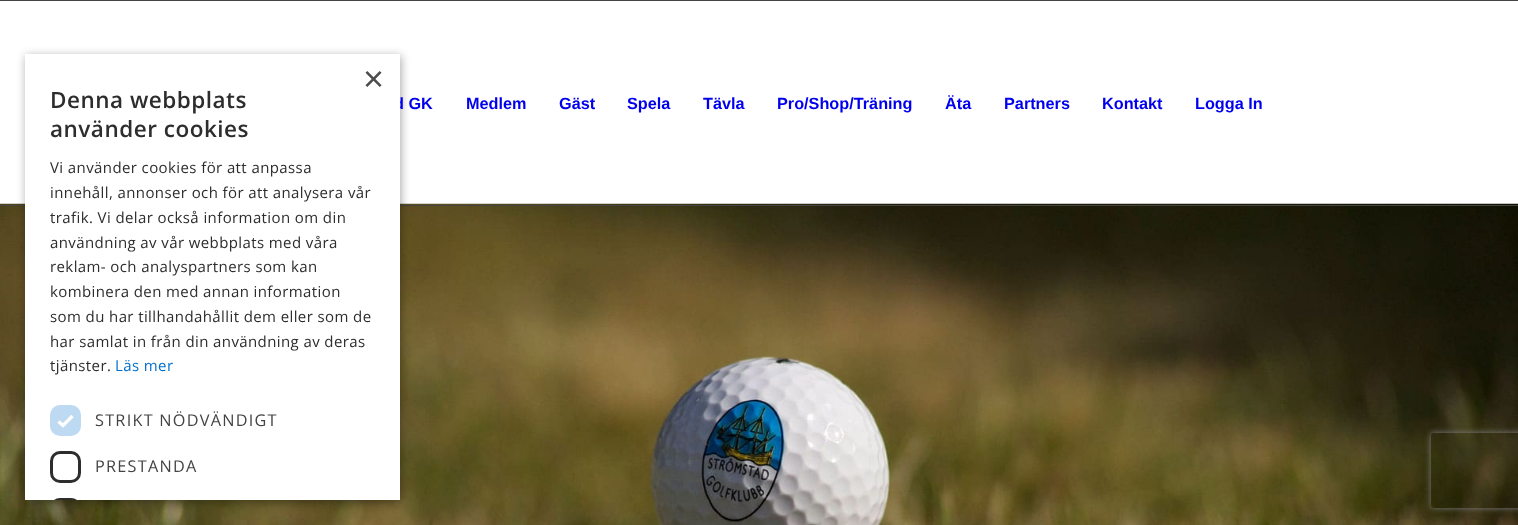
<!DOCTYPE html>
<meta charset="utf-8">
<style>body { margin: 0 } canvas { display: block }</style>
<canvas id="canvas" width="1518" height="525"></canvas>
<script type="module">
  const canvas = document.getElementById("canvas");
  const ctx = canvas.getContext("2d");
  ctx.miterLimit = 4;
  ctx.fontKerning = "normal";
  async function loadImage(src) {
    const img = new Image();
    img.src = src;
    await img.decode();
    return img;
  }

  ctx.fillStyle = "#ffffff";
  ctx.fillRect(0, 0, 1518, 525);
  ctx.drawImage(await loadImage("img1.png"), 0, 203, 1518, 322);
  ctx.fillStyle = "#444444";
  ctx.fillRect(0, 205, 1518, 1);
  ctx.fillStyle = "rgba(0, 0, 0, 0.35)";
  ctx.filter = "blur(5px)";
  ctx.beginPath();
  ctx.rect(26, 56, 375, 447);
  ctx.fill();
  ctx.filter = "none";
  ctx.font = "bold 16.25px Liberation Sans";
  ctx.fillStyle = "#0000ee";
  ctx.fillText("d GK", 394, 109);
  ctx.fillStyle = "#ffffff";
  ctx.fillRect(25, 54, 375, 446);
  ctx.font = "36px Liberation Sans";
  ctx.fillStyle = "#4d4d4d";
  ctx.fillText("×", 363, 91);
  ctx.letterSpacing = "0.5px";
  ctx.font = "600 22.5px Open Sans";
  ctx.fillStyle = "#2d2d2d";
  ctx.fillText("Denna webbplats", 50, 108);
  ctx.fillText("använder cookies", 50, 137);
  ctx.letterSpacing = "0.4px";
  ctx.font = "15px Open Sans";
  ctx.fillText("Vi använder cookies för att anpassa", 50, 173);
  ctx.fillText("innehåll, annonser och för att analysera vår", 50, 198);
  ctx.fillText("trafik. Vi delar också information om din", 50, 223);
  ctx.fillText("användning av vår webbplats med våra", 50, 248);
  ctx.fillText("reklam- och analyspartners som kan", 50, 272);
  ctx.fillText("kombinera den med annan information", 50, 297);
  ctx.fillText("som du har tillhandahållit dem eller som de", 50, 322);
  ctx.fillText("har samlat in från din användning av deras", 50, 347);
  ctx.fillText("tjänster.", 50, 371);
  ctx.fillStyle = "#0070cd";
  ctx.fillText("Läs mer", 115, 371);
  ctx.fillStyle = "#bddaf2";
  ctx.beginPath();
  ctx.roundRect(50, 405, 31, 31, 10);
  ctx.fill();
  ctx.beginPath();
  ctx.moveTo(58.5, 421.5);
  ctx.lineTo(63, 425.5);
  ctx.lineTo(72.5, 416);
  ctx.strokeStyle = "#ffffff";
  ctx.lineWidth = 3.3;
  ctx.stroke();
  ctx.letterSpacing = "1.25px";
  ctx.font = "16.25px Open Sans";
  ctx.fillStyle = "#444444";
  ctx.fillText("STRIKT NÖDVÄNDIGT", 95, 426);
  ctx.beginPath();
  ctx.roundRect(51.5, 452.5, 28, 29, 8.5);
  ctx.strokeStyle = "#2d2d2d";
  ctx.lineWidth = 3;
  ctx.stroke();
  ctx.fillText("PRESTANDA", 95, 472);
  ctx.save();
  ctx.beginPath();
  ctx.rect(25, 54, 375, 446);
  ctx.clip();
  ctx.beginPath();
  ctx.roundRect(51.5, 499.5, 28, 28, 8.5);
  ctx.stroke();
  ctx.restore();
  ctx.fillRect(0, 0, 1518, 1);
  ctx.letterSpacing = "0px";
  ctx.font = "bold 16.25px Liberation Sans";
  ctx.fillStyle = "#0000ee";
  ctx.fillText("Medlem", 466, 109);
  ctx.fillText("Gäst", 559, 109);
  ctx.fillText("Spela", 627, 109);
  ctx.fillText("Tävla", 703, 109);
  ctx.fillText("Pro/Shop/Träning", 777, 109);
  ctx.fillText("Äta", 945, 109);
  ctx.fillText("Partners", 1004, 109);
  ctx.fillText("Kontakt", 1102, 109);
  ctx.fillText("Logga In", 1195, 109);
  ctx.save();
  ctx.beginPath();
  ctx.moveTo(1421, 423);
  ctx.lineTo(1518, 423);
  ctx.lineTo(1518, 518);
  ctx.lineTo(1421, 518);
  ctx.closePath();
  ctx.moveTo(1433.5, 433);
  ctx.lineTo(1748.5, 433);
  ctx.bezierCurveTo(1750, 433, 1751, 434, 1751, 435.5);
  ctx.lineTo(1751, 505.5);
  ctx.bezierCurveTo(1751, 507, 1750, 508, 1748.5, 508);
  ctx.lineTo(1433.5, 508);
  ctx.bezierCurveTo(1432, 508, 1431, 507, 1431, 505.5);
  ctx.lineTo(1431, 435.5);
  ctx.bezierCurveTo(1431, 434, 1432, 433, 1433.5, 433);
  ctx.closePath();
  ctx.clip("evenodd");
  ctx.fillStyle = "#808080";
  ctx.filter = "blur(3px)";
  ctx.beginPath();
  ctx.roundRect(1431, 433, 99, 75, 2.5);
  ctx.fill();
  ctx.filter = "none";
  ctx.restore();
</script>
